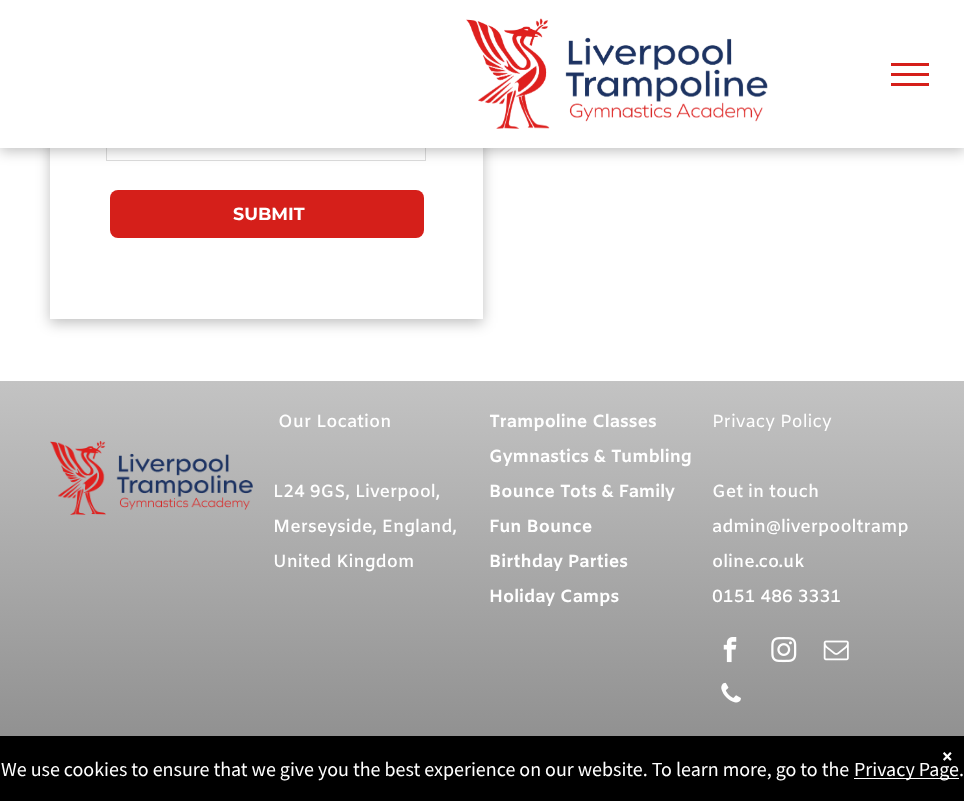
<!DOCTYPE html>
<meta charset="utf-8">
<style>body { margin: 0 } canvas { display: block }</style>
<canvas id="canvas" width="964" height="801"></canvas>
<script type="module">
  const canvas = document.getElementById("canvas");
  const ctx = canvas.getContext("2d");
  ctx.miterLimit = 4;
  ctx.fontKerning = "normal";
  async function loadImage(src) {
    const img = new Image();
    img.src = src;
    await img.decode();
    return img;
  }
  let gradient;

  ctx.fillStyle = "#ffffff";
  ctx.fillRect(0, 0, 964, 801);
  ctx.fillStyle = "rgba(0, 0, 0, 0.25)";
  ctx.filter = "blur(7px)";
  ctx.beginPath();
  ctx.rect(50, -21, 433, 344);
  ctx.fill();
  ctx.filter = "none";
  ctx.fillStyle = "#ffffff";
  ctx.fillRect(50, 148, 433, 171);
  ctx.strokeStyle = "#dddddd";
  ctx.strokeRect(106.5, 61.5, 319, 99);
  ctx.fillStyle = "rgba(0, 0, 0, 0.25)";
  ctx.filter = "blur(7px)";
  ctx.beginPath();
  ctx.rect(0, 4, 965, 147);
  ctx.fill();
  ctx.filter = "none";
  ctx.fillStyle = "#ffffff";
  ctx.fillRect(0, 0, 964, 148);
  ctx.drawImage(await loadImage("img1.png"), 466, 18, 302, 111);
  ctx.fillStyle = "#d51f1a";
  ctx.fillRect(891, 63, 38, 3);
  ctx.fillRect(891, 73, 38, 3);
  ctx.fillRect(891, 83, 38, 3);
  ctx.beginPath();
  ctx.roundRect(110, 190, 314, 48, 8);
  ctx.fill();
  ctx.font = "bold 17.5px Montserrat";
  ctx.fillStyle = "#ffffff";
  ctx.fillText("SUBMIT", 233, 220);
  gradient = ctx.createLinearGradient(483, 801, 483, 381);
  gradient.addColorStop(0, "#888888");
  gradient.addColorStop(1, "#c3c3c3");
  ctx.fillStyle = gradient;
  ctx.fillRect(0, 381, 964, 355);
  ctx.drawImage(await loadImage("img2.png"), 50, 441, 203, 74);
  ctx.font = "600 17.5px Amiko";
  ctx.fillStyle = "#ffffff";
  ctx.fillText("Our Location", 278, 427);
  ctx.fillText("L24 9GS, Liverpool,", 273, 497);
  ctx.fillText("Merseyside, England,", 273, 532);
  ctx.fillText("United Kingdom", 273, 567);
  ctx.font = "bold 17.5px Amiko";
  ctx.fillText("Trampoline Classes", 489, 427);
  ctx.fillText("Gymnastics & Tumbling", 489, 462);
  ctx.fillText("Bounce Tots & Family", 489, 497);
  ctx.fillText("Fun Bounce", 489, 532);
  ctx.fillText("Birthday Parties", 489, 567);
  ctx.fillText("Holiday Camps", 489, 602);
  ctx.font = "17.5px Amiko";
  ctx.fillText("Privacy Policy", 712, 427);
  ctx.font = "600 17.5px Amiko";
  ctx.fillText("Get in touch", 712, 497);
  ctx.fillText("admin@liverpooltramp", 712, 532);
  ctx.fillText("oline.co.uk", 712, 567);
  ctx.fillText("0151 486 3331", 712, 602);
  ctx.drawImage(await loadImage("img3.png"), 723, 637, 14, 26);
  ctx.drawImage(await loadImage("img4.png"), 771, 637, 26, 26);
  ctx.drawImage(await loadImage("img5.png"), 823, 640, 26, 21);
  ctx.drawImage(await loadImage("img6.png"), 721, 682, 20, 21);
  ctx.fillStyle = "#000000";
  ctx.fillRect(0, 736, 964, 65);
  ctx.font = "bold 20px Source Sans Pro";
  ctx.fillStyle = "#ffffff";
  ctx.fillText("×", 942, 763);
  ctx.font = "20px Source Sans Pro";
  ctx.fillText("We use cookies to ensure that we give you the best experience on our website. To learn more, go to the", 1, 776);
  ctx.fillRect(854, 778, 105, 1);
  ctx.fillText("Privacy Page.", 854, 776);
</script>
